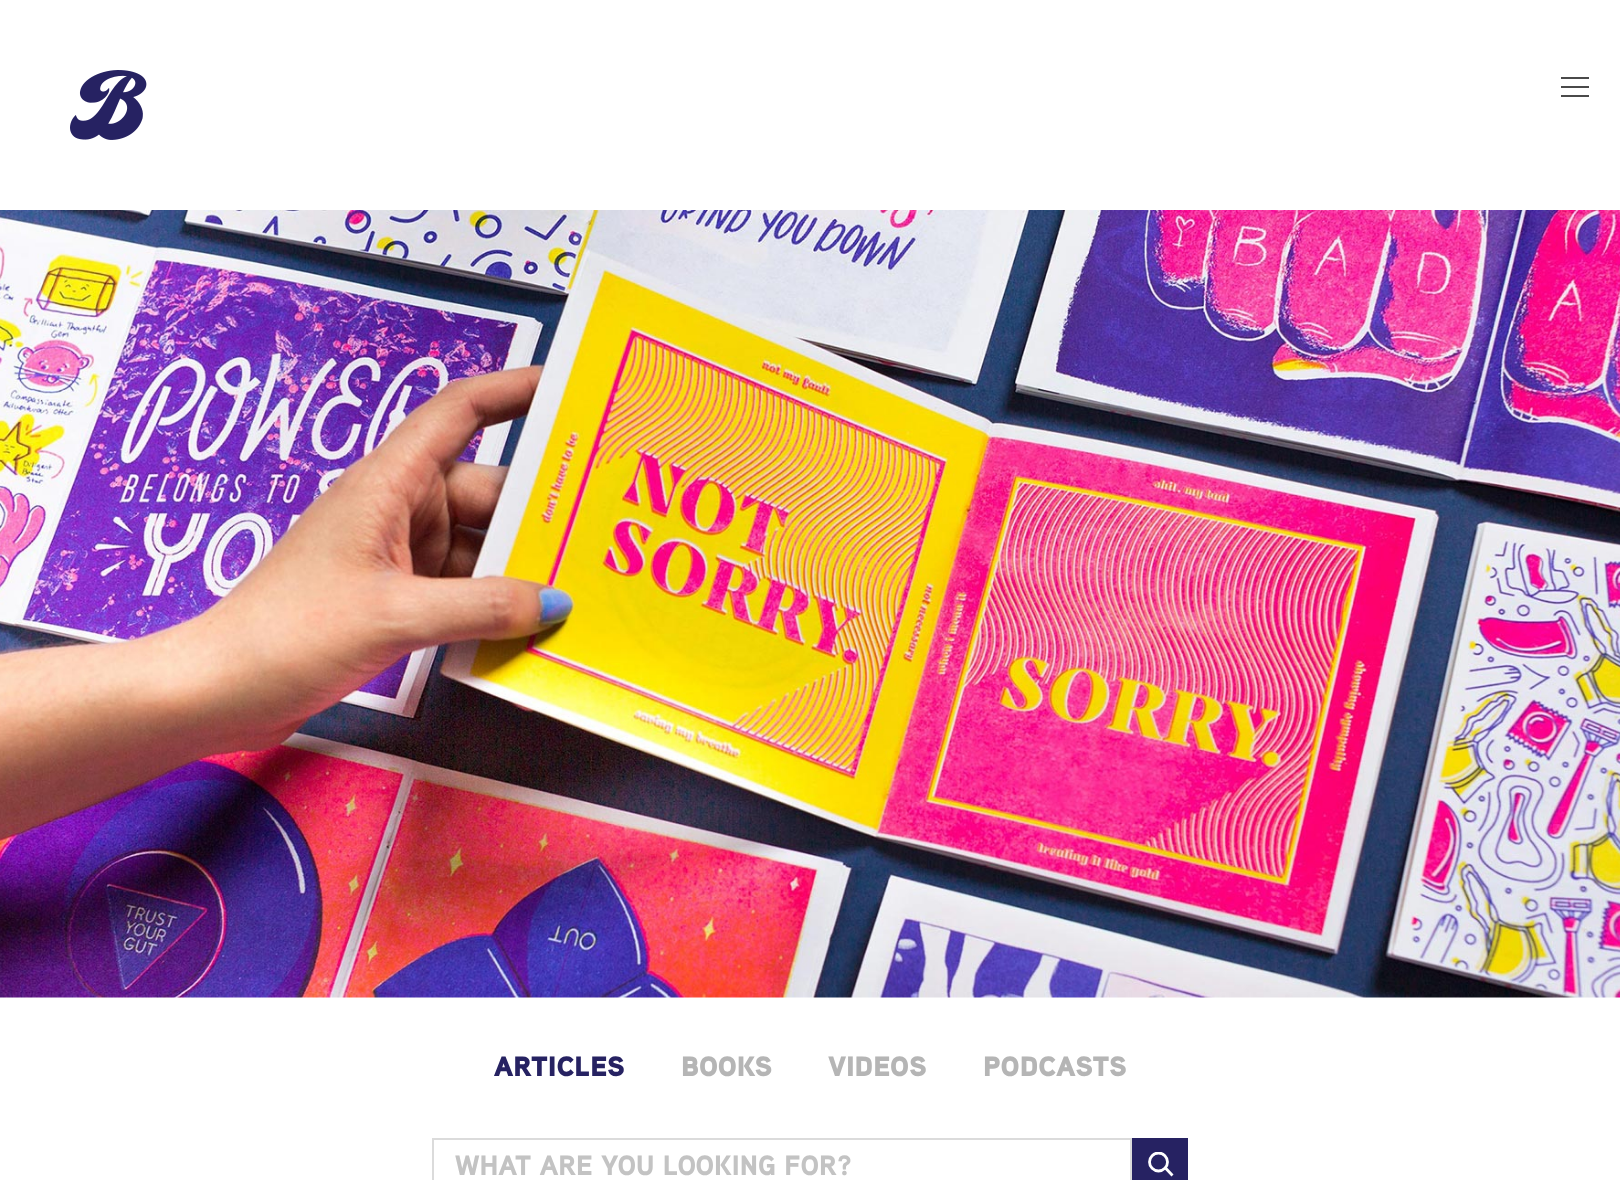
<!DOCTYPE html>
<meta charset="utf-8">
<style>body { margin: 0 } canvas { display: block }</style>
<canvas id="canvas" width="1620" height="1180"></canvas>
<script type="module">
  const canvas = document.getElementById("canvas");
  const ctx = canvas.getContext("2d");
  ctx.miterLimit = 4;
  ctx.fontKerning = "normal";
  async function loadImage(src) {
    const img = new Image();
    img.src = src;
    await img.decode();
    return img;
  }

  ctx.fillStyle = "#ffffff";
  ctx.fillRect(0, 0, 1620, 1180);
  ctx.drawImage(await loadImage("img1.png"), 70, 70, 77, 70);
  ctx.fillStyle = "#4a4a4a";
  ctx.fillRect(1561, 77, 28, 2);
  ctx.fillRect(1561, 86, 28, 2);
  ctx.fillRect(1561, 95, 28, 2);
  ctx.drawImage(await loadImage("img2.png"), 0, 210, 1620, 788);
  ctx.font = "28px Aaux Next";
  ctx.fillStyle = "#262262";
  ctx.fillText("ARTICLES", 494, 1076);
  ctx.fillStyle = "#b5b5b5";
  ctx.fillText("BOOKS", 681, 1076);
  ctx.fillText("VIDEOS", 828, 1076);
  ctx.fillText("PODCASTS", 983, 1076);
  ctx.strokeStyle = "#dbdbdb";
  ctx.lineWidth = 2;
  ctx.strokeRect(433, 1139, 698, 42);
  ctx.font = "900 28px Aaux Next";
  ctx.fillStyle = "#c3c3c3";
  ctx.fillText("WHAT ARE YOU LOOKING FOR?", 455, 1175);
  ctx.fillStyle = "#262262";
  ctx.fillRect(1132, 1138, 56, 42);
  ctx.save();
  ctx.beginPath();
  ctx.rect(1148, 1152, 26, 28);
  ctx.clip();
  ctx.beginPath();
  ctx.arc(1158.5, 1162, 9, 0, Math.PI * 2);
  ctx.strokeStyle = "#ffffff";
  ctx.lineWidth = 2.8;
  ctx.stroke();
  ctx.restore();
  ctx.beginPath();
  ctx.moveTo(1165, 1167.5);
  ctx.lineTo(1172.5, 1175.5);
  ctx.strokeStyle = "#ffffff";
  ctx.lineWidth = 2.8;
  ctx.stroke();
</script>
